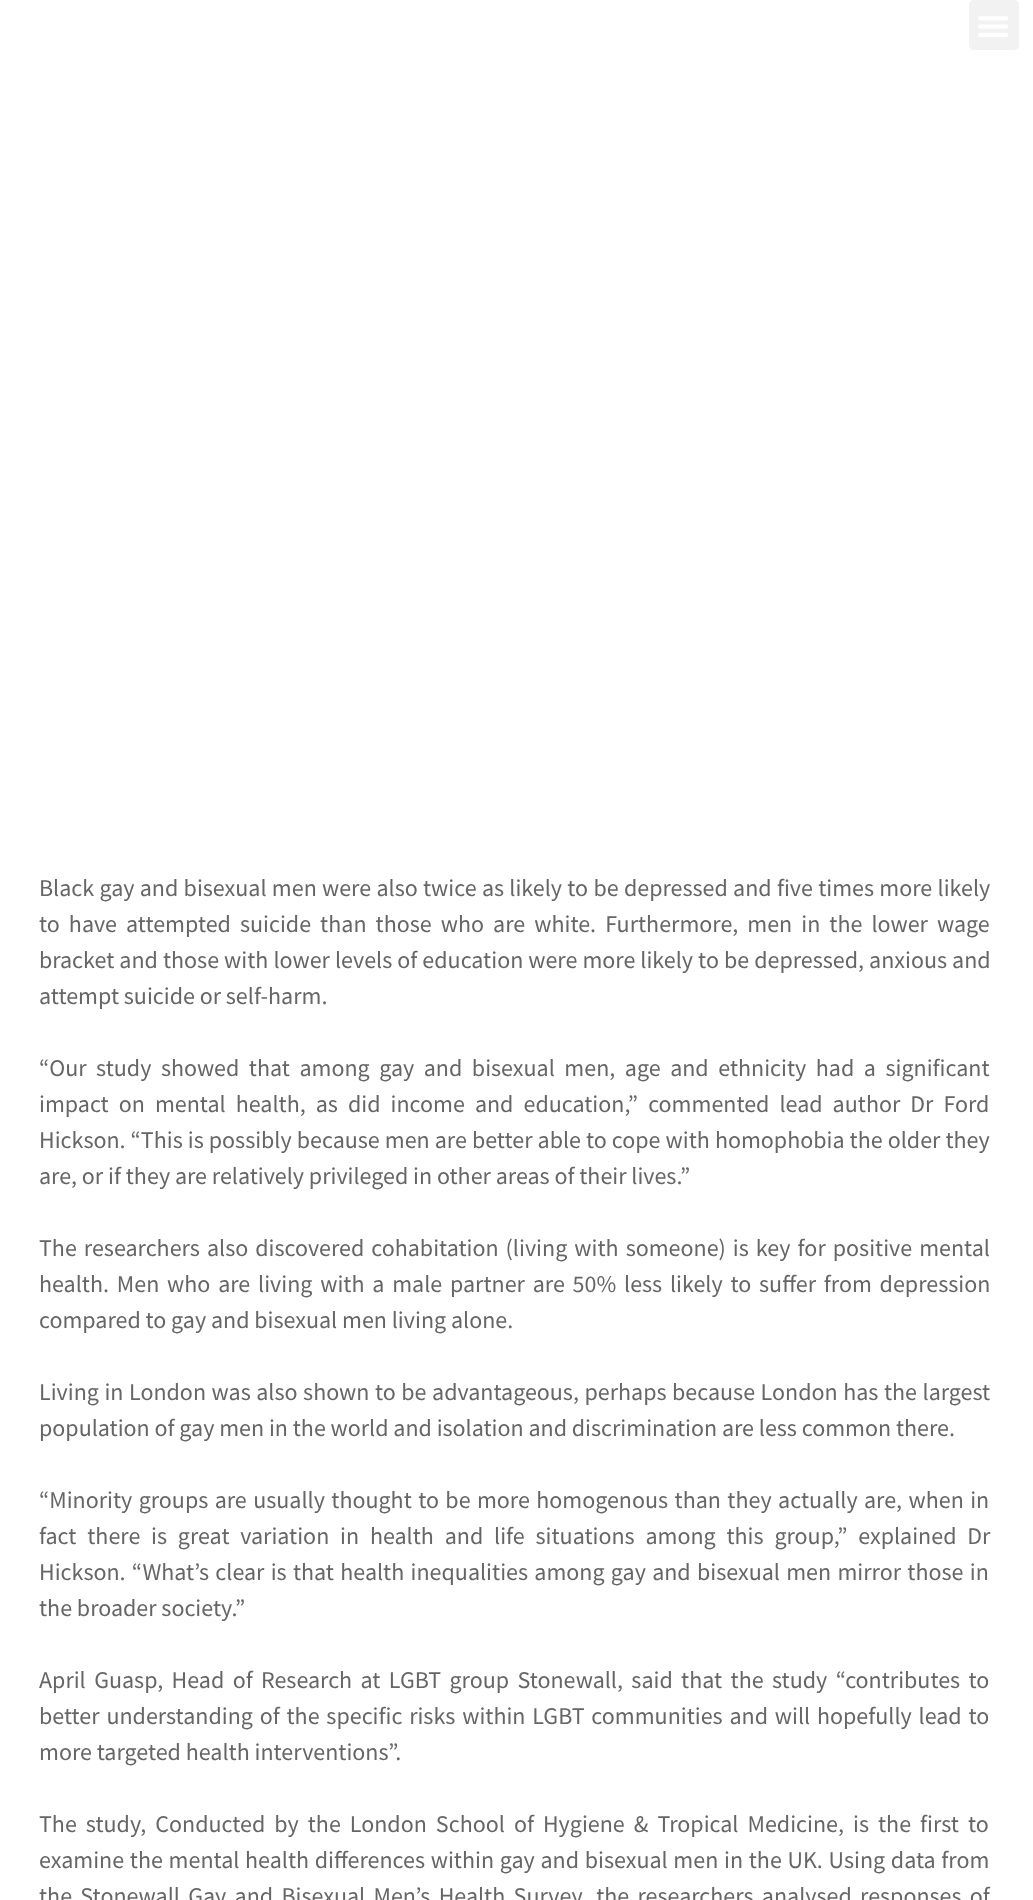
<!DOCTYPE html>
<meta charset="utf-8">
<style>body { margin: 0 } canvas { display: block }</style>
<canvas id="canvas" width="1033" height="1900"></canvas>
<script type="module">
  const canvas = document.getElementById("canvas");
  const ctx = canvas.getContext("2d");
  ctx.miterLimit = 4;
  ctx.fontKerning = "normal";
  async function loadImage(src) {
    const img = new Image();
    img.src = src;
    await img.decode();
    return img;
  }

  ctx.fillStyle = "#ffffff";
  ctx.fillRect(0, 0, 1033, 1900);
  ctx.fillStyle = "#f2f2f2";
  ctx.beginPath();
  ctx.roundRect(969, 0, 50, 50, 5);
  ctx.fill();
  ctx.drawImage(await loadImage("img1.png"), 978, 16, 30, 21);
  ctx.wordSpacing = "0.5px";
  ctx.font = "24px Source Sans Pro";
  ctx.fillStyle = "#666666";
  ctx.fillText("Black gay and bisexual men were also twice as likely to be depressed and five times more likely", 39, 896);
  ctx.wordSpacing = "4.25px";
  ctx.fillText("to have attempted suicide than those who are white. Furthermore, men in the lower wage", 39, 932);
  ctx.wordSpacing = "0.25px";
  ctx.fillText("bracket and those with lower levels of education were more likely to be depressed, anxious and", 39, 968);
  ctx.wordSpacing = "0px";
  ctx.fillText("attempt suicide or self-harm.", 39, 1004);
  ctx.wordSpacing = "4.75px";
  ctx.fillText("“Our study showed that among gay and bisexual men, age and ethnicity had a significant", 39, 1076);
  ctx.wordSpacing = "5.25px";
  ctx.fillText("impact on mental health, as did income and education,” commented lead author Dr Ford", 39, 1112);
  ctx.wordSpacing = "0.25px";
  ctx.fillText("Hickson. “This is possibly because men are better able to cope with homophobia the older they", 39, 1148);
  ctx.wordSpacing = "0px";
  ctx.fillText("are, or if they are relatively privileged in other areas of their lives.”", 39, 1184);
  ctx.wordSpacing = "2.25px";
  ctx.fillText("The researchers also discovered cohabitation (living with someone) is key for positive mental", 39, 1256);
  ctx.wordSpacing = "3px";
  ctx.fillText("health. Men who are living with a male partner are 50% less likely to suffer from depression", 39, 1292);
  ctx.wordSpacing = "0px";
  ctx.fillText("compared to gay and bisexual men living alone.", 39, 1328);
  ctx.wordSpacing = "0.75px";
  ctx.fillText("Living in London was also shown to be advantageous, perhaps because London has the largest", 39, 1400);
  ctx.wordSpacing = "0px";
  ctx.fillText("population of gay men in the world and isolation and discrimination are less common there.", 39, 1436);
  ctx.wordSpacing = "1.6px";
  ctx.fillText("“Minority groups are usually thought to be more homogenous than they actually are, when in", 39, 1508);
  ctx.wordSpacing = "6px";
  ctx.fillText("fact there is great variation in health and life situations among this group,” explained Dr", 39, 1544);
  ctx.wordSpacing = "1.5px";
  ctx.fillText("Hickson. “What’s clear is that health inequalities among gay and bisexual men mirror those in", 39, 1580);
  ctx.wordSpacing = "0px";
  ctx.fillText("the broader society.”", 39, 1616);
  ctx.wordSpacing = "3.6px";
  ctx.fillText("April Guasp, Head of Research at LGBT group Stonewall, said that the study “contributes to", 39, 1688);
  ctx.wordSpacing = "2px";
  ctx.fillText("better understanding of the specific risks within LGBT communities and will hopefully lead to", 39, 1724);
  ctx.wordSpacing = "0px";
  ctx.fillText("more targeted health interventions”.", 39, 1760);
  ctx.wordSpacing = "4.25px";
  ctx.fillText("The study, Conducted by the London School of Hygiene & Tropical Medicine, is the first to", 39, 1832);
  ctx.wordSpacing = "0.9px";
  ctx.fillText("examine the mental health differences within gay and bisexual men in the UK. Using data from", 39, 1868);
  ctx.wordSpacing = "3.5px";
  ctx.fillText("the Stonewall Gay and Bisexual Men’s Health Survey, the researchers analysed responses of", 39, 1904);
</script>
